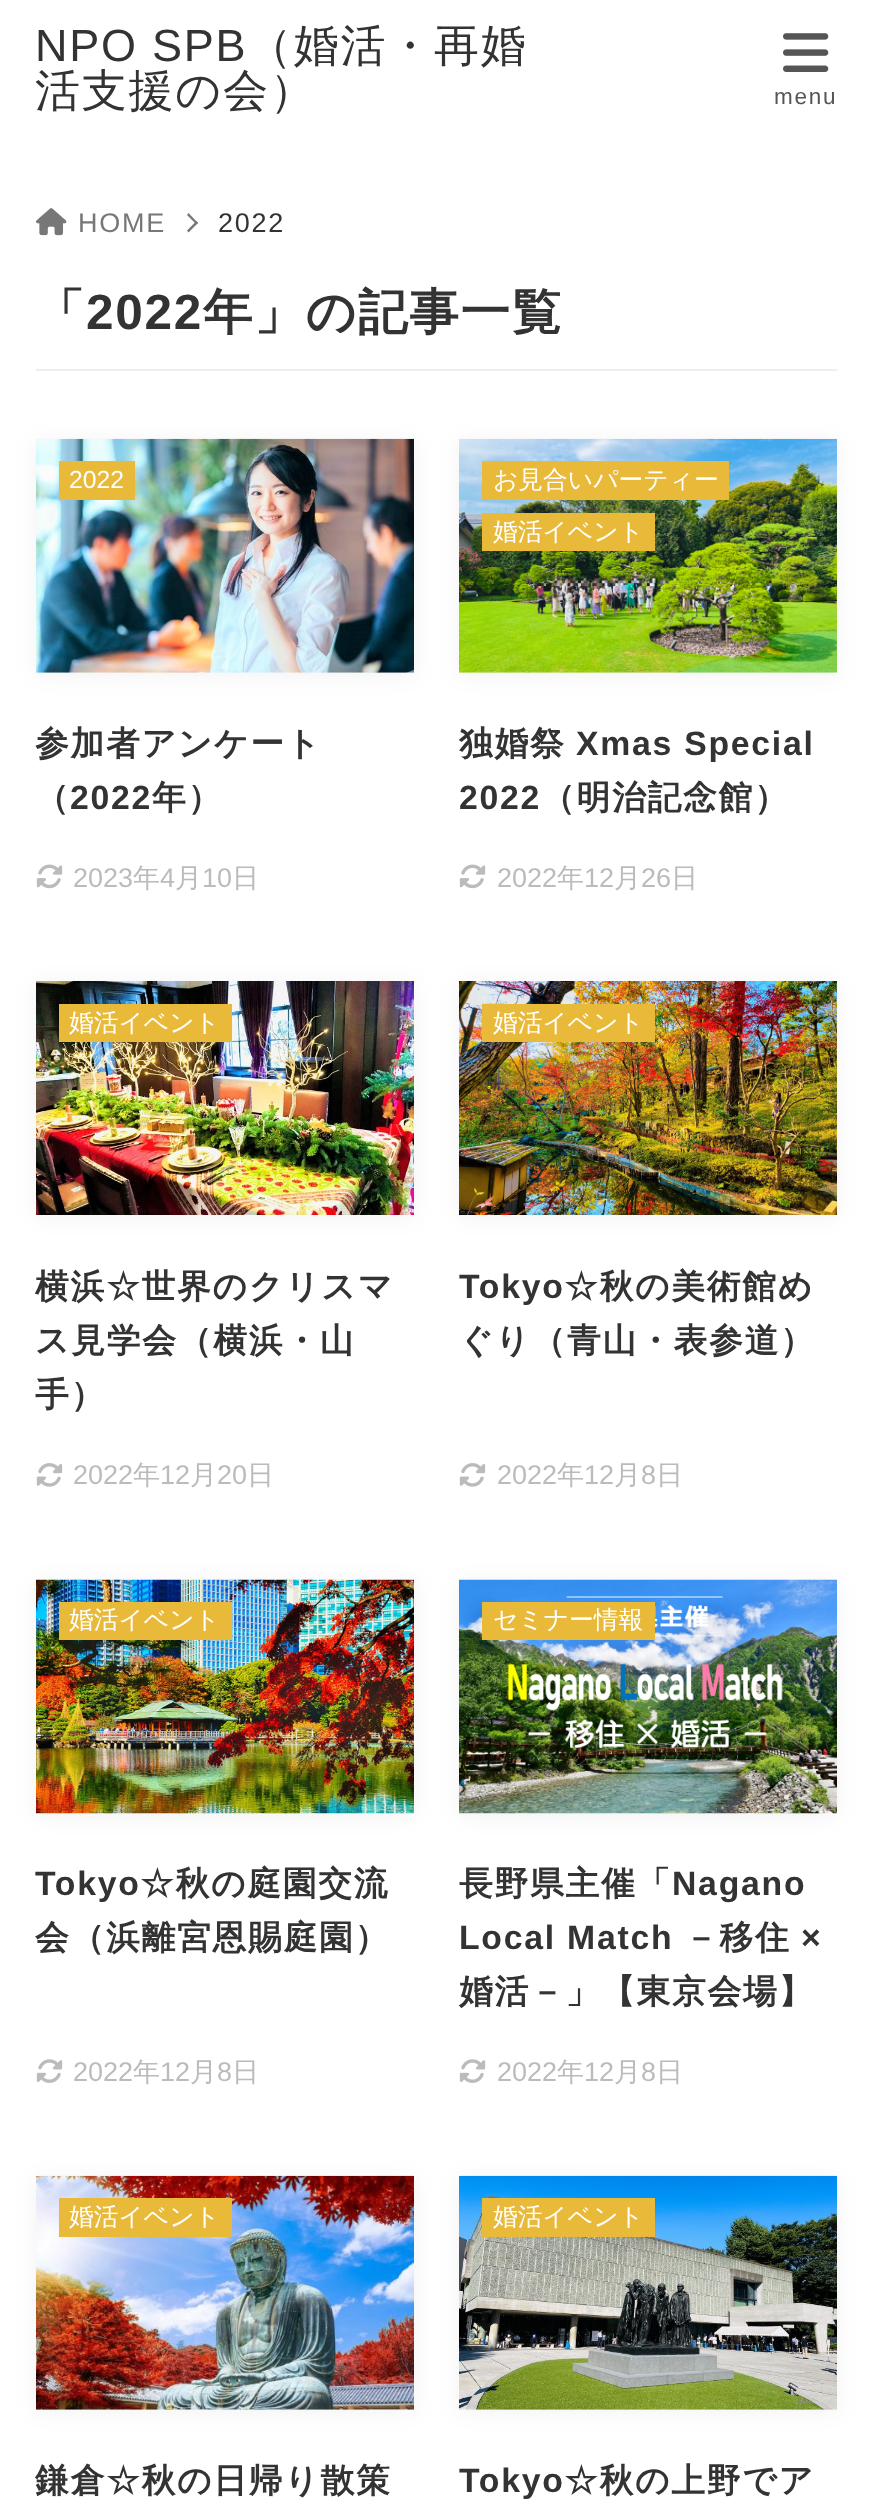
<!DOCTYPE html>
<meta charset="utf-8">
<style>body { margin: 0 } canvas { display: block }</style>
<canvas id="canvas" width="873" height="2518"></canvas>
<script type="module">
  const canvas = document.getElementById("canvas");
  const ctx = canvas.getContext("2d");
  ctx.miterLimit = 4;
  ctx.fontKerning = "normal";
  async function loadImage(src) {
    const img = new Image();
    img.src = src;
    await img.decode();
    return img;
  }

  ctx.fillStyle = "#ffffff";
  ctx.fillRect(0, 0, 873, 2518);
  ctx.letterSpacing = "1.75px";
  ctx.font = "45px Liberation Sans";
  ctx.fillStyle = "#333333";
  ctx.fillText("NPO SPB", 35, 61);
  ctx.font = "500 45px WenQuanYi Zen Hei";
  ctx.fillText("（婚活・再婚", 247, 61);
  ctx.fillText("活支援の会）", 35, 106);
  ctx.drawImage(await loadImage("img1.png"), 783, 33, 46, 39);
  ctx.font = "22.5px Liberation Sans";
  ctx.fillStyle = "#555555";
  ctx.fillText("menu", 774, 104);
  ctx.drawImage(await loadImage("img2.png"), 36, 208, 31, 28);
  ctx.font = "27px Liberation Sans";
  ctx.fillStyle = "#777777";
  ctx.fillText("HOME", 78, 232);
  ctx.beginPath();
  ctx.moveTo(188.5, 213);
  ctx.lineTo(198, 223);
  ctx.lineTo(196.5, 224.5);
  ctx.lineTo(187, 215);
  ctx.closePath();
  ctx.fill();
  ctx.beginPath();
  ctx.moveTo(196.5, 221);
  ctx.lineTo(198, 223);
  ctx.lineTo(188.5, 232.5);
  ctx.lineTo(187, 230.5);
  ctx.closePath();
  ctx.fill();
  ctx.fillStyle = "#333333";
  ctx.fillText("2022", 218, 232);
  ctx.fillStyle = "#eeeeee";
  ctx.fillRect(36, 369, 801, 2);
  ctx.font = "bold 49.5px WenQuanYi Zen Hei";
  ctx.fillStyle = "#333333";
  ctx.fillText("「", 35, 329);
  ctx.font = "bold 49.5px Liberation Sans";
  ctx.fillText("2022", 86, 329);
  ctx.font = "bold 49.5px WenQuanYi Zen Hei";
  ctx.fillText("年」の記事一覧", 203, 329);
  ctx.fillStyle = "rgba(0, 0, 0, 0.05)";
  ctx.filter = "blur(11px)";
  ctx.beginPath();
  ctx.rect(36, 441, 378, 234);
  ctx.fill();
  ctx.filter = "none";
  ctx.drawImage(await loadImage("img3.png"), 36, 438, 378, 235);
  ctx.fillStyle = "#e9ba3a";
  ctx.fillRect(59, 461, 76, 39);
  ctx.letterSpacing = "0px";
  ctx.font = "24.75px Liberation Sans";
  ctx.fillStyle = "#ffffff";
  ctx.fillText("2022", 69, 488);
  ctx.drawImage(await loadImage("img4.png"), 36, 864, 27, 25);
  ctx.font = "27px Liberation Sans";
  ctx.fillStyle = "#bbbbbb";
  ctx.fillText("2023", 73, 887);
  ctx.font = "500 27px WenQuanYi Zen Hei";
  ctx.fillText("年", 133, 887);
  ctx.font = "27px Liberation Sans";
  ctx.fillText("4", 160, 887);
  ctx.font = "500 27px WenQuanYi Zen Hei";
  ctx.fillText("月", 175, 887);
  ctx.font = "27px Liberation Sans";
  ctx.fillText("10", 202, 887);
  ctx.font = "500 27px WenQuanYi Zen Hei";
  ctx.fillText("日", 232, 887);
  ctx.letterSpacing = "1.75px";
  ctx.font = "bold 33.75px WenQuanYi Zen Hei";
  ctx.fillStyle = "#333333";
  ctx.fillText("参加者アンケート", 35, 755);
  ctx.fillText("（", 35, 809);
  ctx.font = "bold 33.75px Liberation Sans";
  ctx.fillText("2022", 70, 809);
  ctx.font = "bold 33.75px WenQuanYi Zen Hei";
  ctx.fillText("年）", 152, 809);
  ctx.fillStyle = "rgba(0, 0, 0, 0.05)";
  ctx.filter = "blur(11px)";
  ctx.beginPath();
  ctx.rect(459, 441, 378, 234);
  ctx.fill();
  ctx.filter = "none";
  ctx.drawImage(await loadImage("img5.png"), 459, 438, 378, 235);
  ctx.fillStyle = "#e9ba3a";
  ctx.fillRect(482, 461, 247, 39);
  ctx.letterSpacing = "0px";
  ctx.font = "500 24.75px WenQuanYi Zen Hei";
  ctx.fillStyle = "#ffffff";
  ctx.fillText("お見合いパーティー", 493, 488);
  ctx.fillStyle = "#e9ba3a";
  ctx.fillRect(482, 513, 173, 38);
  ctx.fillStyle = "#ffffff";
  ctx.fillText("婚活イベント", 493, 540);
  ctx.drawImage(await loadImage("img4.png"), 459, 864, 27, 25);
  ctx.font = "27px Liberation Sans";
  ctx.fillStyle = "#bbbbbb";
  ctx.fillText("2022", 497, 887);
  ctx.font = "500 27px WenQuanYi Zen Hei";
  ctx.fillText("年", 557, 887);
  ctx.font = "27px Liberation Sans";
  ctx.fillText("12", 584, 887);
  ctx.font = "500 27px WenQuanYi Zen Hei";
  ctx.fillText("月", 614, 887);
  ctx.font = "27px Liberation Sans";
  ctx.fillText("26", 641, 887);
  ctx.font = "500 27px WenQuanYi Zen Hei";
  ctx.fillText("日", 671, 887);
  ctx.letterSpacing = "1.75px";
  ctx.font = "bold 33.75px WenQuanYi Zen Hei";
  ctx.fillStyle = "#333333";
  ctx.fillText("独婚祭", 459, 755);
  ctx.font = "bold 33.75px Liberation Sans";
  ctx.fillText("Xmas Special", 576, 755);
  ctx.fillText("2022", 459, 809);
  ctx.font = "bold 33.75px WenQuanYi Zen Hei";
  ctx.fillText("（明治記念館）", 541, 809);
  ctx.fillStyle = "rgba(0, 0, 0, 0.05)";
  ctx.filter = "blur(11px)";
  ctx.beginPath();
  ctx.rect(36, 983, 378, 234);
  ctx.fill();
  ctx.filter = "none";
  ctx.drawImage(await loadImage("img6.png"), 36, 981, 378, 234);
  ctx.fillStyle = "#e9ba3a";
  ctx.fillRect(59, 1004, 173, 38);
  ctx.letterSpacing = "0px";
  ctx.font = "500 24.75px WenQuanYi Zen Hei";
  ctx.fillStyle = "#ffffff";
  ctx.fillText("婚活イベント", 69, 1031);
  ctx.drawImage(await loadImage("img7.png"), 36, 1463, 27, 24);
  ctx.font = "27px Liberation Sans";
  ctx.fillStyle = "#bbbbbb";
  ctx.fillText("2022", 73, 1484);
  ctx.font = "500 27px WenQuanYi Zen Hei";
  ctx.fillText("年", 133, 1484);
  ctx.font = "27px Liberation Sans";
  ctx.fillText("12", 160, 1484);
  ctx.font = "500 27px WenQuanYi Zen Hei";
  ctx.fillText("月", 190, 1484);
  ctx.font = "27px Liberation Sans";
  ctx.fillText("20", 217, 1484);
  ctx.font = "500 27px WenQuanYi Zen Hei";
  ctx.fillText("日", 247, 1484);
  ctx.letterSpacing = "1.75px";
  ctx.font = "bold 33.75px WenQuanYi Zen Hei";
  ctx.fillStyle = "#333333";
  ctx.fillText("横浜☆世界のクリスマ", 35, 1298);
  ctx.fillText("ス見学会（横浜・山", 35, 1352);
  ctx.fillText("手）", 35, 1406);
  ctx.fillStyle = "rgba(0, 0, 0, 0.05)";
  ctx.filter = "blur(11px)";
  ctx.beginPath();
  ctx.rect(459, 983, 378, 234);
  ctx.fill();
  ctx.filter = "none";
  ctx.drawImage(await loadImage("img8.png"), 459, 981, 378, 234);
  ctx.fillStyle = "#e9ba3a";
  ctx.fillRect(482, 1004, 173, 38);
  ctx.letterSpacing = "0px";
  ctx.font = "500 24.75px WenQuanYi Zen Hei";
  ctx.fillStyle = "#ffffff";
  ctx.fillText("婚活イベント", 493, 1031);
  ctx.drawImage(await loadImage("img7.png"), 459, 1463, 27, 24);
  ctx.font = "27px Liberation Sans";
  ctx.fillStyle = "#bbbbbb";
  ctx.fillText("2022", 497, 1484);
  ctx.font = "500 27px WenQuanYi Zen Hei";
  ctx.fillText("年", 557, 1484);
  ctx.font = "27px Liberation Sans";
  ctx.fillText("12", 584, 1484);
  ctx.font = "500 27px WenQuanYi Zen Hei";
  ctx.fillText("月", 614, 1484);
  ctx.font = "27px Liberation Sans";
  ctx.fillText("8", 641, 1484);
  ctx.font = "500 27px WenQuanYi Zen Hei";
  ctx.fillText("日", 656, 1484);
  ctx.letterSpacing = "1.75px";
  ctx.font = "bold 33.75px Liberation Sans";
  ctx.fillStyle = "#333333";
  ctx.fillText("Tokyo", 459, 1298);
  ctx.font = "bold 33.75px WenQuanYi Zen Hei";
  ctx.fillText("☆秋の美術館め", 564, 1298);
  ctx.fillText("ぐり（青山・表参道）", 459, 1352);
  ctx.fillStyle = "rgba(0, 0, 0, 0.05)";
  ctx.filter = "blur(11px)";
  ctx.beginPath();
  ctx.rect(36, 1582, 378, 234);
  ctx.fill();
  ctx.filter = "none";
  ctx.drawImage(await loadImage("img9.png"), 36, 1579, 378, 235);
  ctx.fillStyle = "#e9ba3a";
  ctx.fillRect(59, 1602, 173, 38);
  ctx.letterSpacing = "0px";
  ctx.font = "500 24.75px WenQuanYi Zen Hei";
  ctx.fillStyle = "#ffffff";
  ctx.fillText("婚活イベント", 69, 1628);
  ctx.drawImage(await loadImage("img10.png"), 36, 2059, 27, 24);
  ctx.font = "27px Liberation Sans";
  ctx.fillStyle = "#bbbbbb";
  ctx.fillText("2022", 73, 2081);
  ctx.font = "500 27px WenQuanYi Zen Hei";
  ctx.fillText("年", 133, 2081);
  ctx.font = "27px Liberation Sans";
  ctx.fillText("12", 160, 2081);
  ctx.font = "500 27px WenQuanYi Zen Hei";
  ctx.fillText("月", 190, 2081);
  ctx.font = "27px Liberation Sans";
  ctx.fillText("8", 217, 2081);
  ctx.font = "500 27px WenQuanYi Zen Hei";
  ctx.fillText("日", 232, 2081);
  ctx.letterSpacing = "1.75px";
  ctx.font = "bold 33.75px Liberation Sans";
  ctx.fillStyle = "#333333";
  ctx.fillText("Tokyo", 35, 1895);
  ctx.font = "bold 33.75px WenQuanYi Zen Hei";
  ctx.fillText("☆秋の庭園交流", 140, 1895);
  ctx.fillText("会（浜離宮恩賜庭園）", 35, 1949);
  ctx.fillStyle = "rgba(0, 0, 0, 0.05)";
  ctx.filter = "blur(11px)";
  ctx.beginPath();
  ctx.rect(459, 1582, 378, 234);
  ctx.fill();
  ctx.filter = "none";
  ctx.drawImage(await loadImage("img11.png"), 459, 1579, 378, 235);
  ctx.fillStyle = "#e9ba3a";
  ctx.fillRect(482, 1602, 173, 38);
  ctx.letterSpacing = "0px";
  ctx.font = "500 24.75px WenQuanYi Zen Hei";
  ctx.fillStyle = "#ffffff";
  ctx.fillText("セミナー情報", 493, 1628);
  ctx.drawImage(await loadImage("img10.png"), 459, 2059, 27, 24);
  ctx.font = "27px Liberation Sans";
  ctx.fillStyle = "#bbbbbb";
  ctx.fillText("2022", 497, 2081);
  ctx.font = "500 27px WenQuanYi Zen Hei";
  ctx.fillText("年", 557, 2081);
  ctx.font = "27px Liberation Sans";
  ctx.fillText("12", 584, 2081);
  ctx.font = "500 27px WenQuanYi Zen Hei";
  ctx.fillText("月", 614, 2081);
  ctx.font = "27px Liberation Sans";
  ctx.fillText("8", 641, 2081);
  ctx.font = "500 27px WenQuanYi Zen Hei";
  ctx.fillText("日", 656, 2081);
  ctx.letterSpacing = "1.75px";
  ctx.font = "bold 33.75px WenQuanYi Zen Hei";
  ctx.fillStyle = "#333333";
  ctx.fillText("長野県主催「", 459, 1895);
  ctx.font = "bold 33.75px Liberation Sans";
  ctx.fillText("Nagano", 672, 1895);
  ctx.fillText("Local Match", 459, 1949);
  ctx.font = "bold 33.75px WenQuanYi Zen Hei";
  ctx.fillText("－移住", 684, 1949);
  ctx.font = "bold 33.75px Liberation Sans";
  ctx.fillText("×", 801, 1949);
  ctx.font = "bold 33.75px WenQuanYi Zen Hei";
  ctx.fillText("婚活－」【東京会場】", 459, 2003);
  ctx.fillStyle = "rgba(0, 0, 0, 0.05)";
  ctx.filter = "blur(11px)";
  ctx.beginPath();
  ctx.rect(36, 2178, 378, 234);
  ctx.fill();
  ctx.filter = "none";
  ctx.drawImage(await loadImage("img12.png"), 36, 2175, 378, 235);
  ctx.fillStyle = "#e9ba3a";
  ctx.fillRect(59, 2198, 173, 39);
  ctx.letterSpacing = "0px";
  ctx.font = "500 24.75px WenQuanYi Zen Hei";
  ctx.fillStyle = "#ffffff";
  ctx.fillText("婚活イベント", 69, 2225);
  ctx.letterSpacing = "1.75px";
  ctx.font = "bold 33.75px WenQuanYi Zen Hei";
  ctx.fillStyle = "#333333";
  ctx.fillText("鎌倉☆秋の日帰り散策", 35, 2492);
  ctx.fillStyle = "rgba(0, 0, 0, 0.05)";
  ctx.filter = "blur(11px)";
  ctx.beginPath();
  ctx.rect(459, 2178, 378, 234);
  ctx.fill();
  ctx.filter = "none";
  ctx.drawImage(await loadImage("img13.png"), 459, 2175, 378, 235);
  ctx.fillStyle = "#e9ba3a";
  ctx.fillRect(482, 2198, 173, 39);
  ctx.letterSpacing = "0px";
  ctx.font = "500 24.75px WenQuanYi Zen Hei";
  ctx.fillStyle = "#ffffff";
  ctx.fillText("婚活イベント", 493, 2225);
  ctx.letterSpacing = "1.75px";
  ctx.font = "bold 33.75px Liberation Sans";
  ctx.fillStyle = "#333333";
  ctx.fillText("Tokyo", 459, 2492);
  ctx.font = "bold 33.75px WenQuanYi Zen Hei";
  ctx.fillText("☆秋の上野でア", 564, 2492);
</script>
